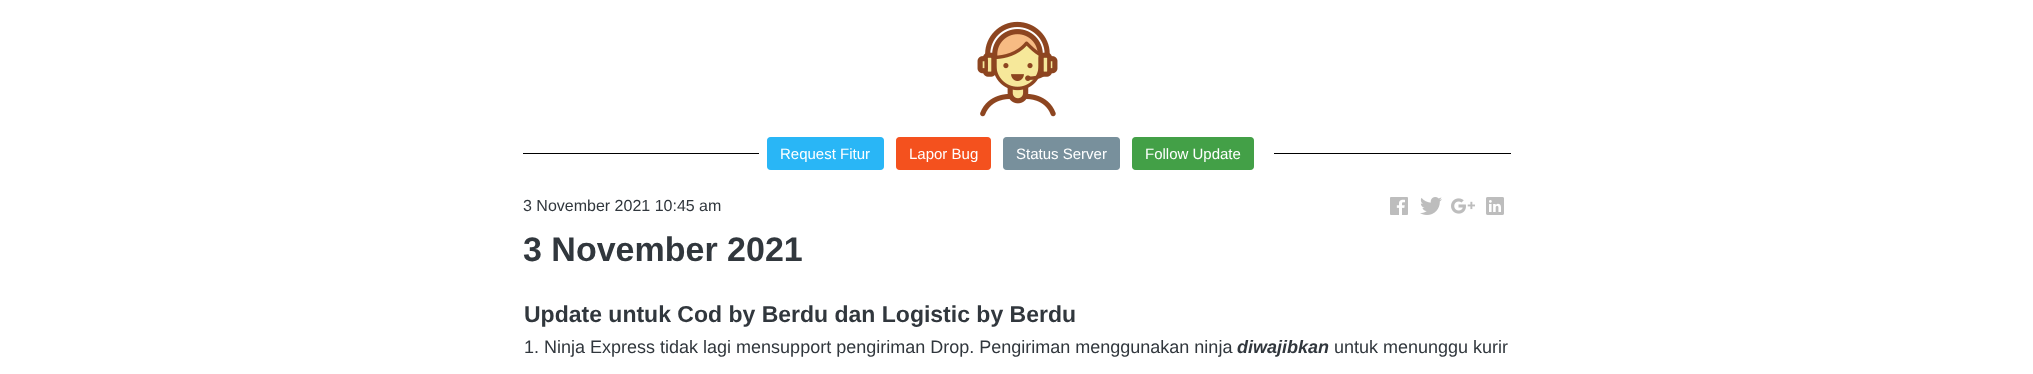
<!DOCTYPE html>
<meta charset="utf-8">
<style>body { margin: 0 } canvas { display: block }</style>
<canvas id="canvas" width="2033" height="374"></canvas>
<script type="module">
  const canvas = document.getElementById("canvas");
  const ctx = canvas.getContext("2d");
  ctx.miterLimit = 4;
  ctx.fontKerning = "normal";
  async function loadImage(src) {
    const img = new Image();
    img.src = src;
    await img.decode();
    return img;
  }

  ctx.fillStyle = "#ffffff";
  ctx.fillRect(0, 0, 2033, 374);
  ctx.drawImage(await loadImage("img1.png"), 977, 21, 81, 96);
  ctx.fillStyle = "#000000";
  ctx.fillRect(523, 153, 236, 1);
  ctx.fillStyle = "#29b6f6";
  ctx.beginPath();
  ctx.roundRect(767, 137, 117, 33, 4);
  ctx.fill();
  ctx.beginPath();
  ctx.roundRect(767.5, 137.5, 116, 32, 3.5);
  ctx.strokeStyle = "rgba(41, 182, 246, 0.5)";
  ctx.stroke();
  ctx.font = "15px Liberation Sans";
  ctx.fillStyle = "#ffffff";
  ctx.fillText("Request Fitur", 780, 159);
  ctx.fillStyle = "#f4511e";
  ctx.beginPath();
  ctx.roundRect(896, 137, 95, 33, 4);
  ctx.fill();
  ctx.beginPath();
  ctx.roundRect(896.5, 137.5, 94, 32, 3.5);
  ctx.strokeStyle = "rgba(244, 81, 30, 0.5)";
  ctx.stroke();
  ctx.fillStyle = "#ffffff";
  ctx.fillText("Lapor Bug", 909, 159);
  ctx.fillStyle = "#78909c";
  ctx.beginPath();
  ctx.roundRect(1003, 137, 117, 33, 4);
  ctx.fill();
  ctx.beginPath();
  ctx.roundRect(1003.5, 137.5, 116, 32, 3.5);
  ctx.strokeStyle = "rgba(120, 144, 156, 0.5)";
  ctx.stroke();
  ctx.fillStyle = "#ffffff";
  ctx.fillText("Status Server", 1016, 159);
  ctx.fillStyle = "#43a047";
  ctx.beginPath();
  ctx.roundRect(1132, 137, 122, 33, 4);
  ctx.fill();
  ctx.beginPath();
  ctx.roundRect(1132.5, 137.5, 121, 32, 3.5);
  ctx.strokeStyle = "rgba(67, 160, 71, 0.5)";
  ctx.stroke();
  ctx.fillStyle = "#ffffff";
  ctx.fillText("Follow Update", 1145, 159);
  ctx.fillStyle = "#000000";
  ctx.fillRect(1274, 153, 237, 1);
  ctx.font = "16px Liberation Sans";
  ctx.fillStyle = "#31373d";
  ctx.fillText("3 November 2021 10:45 am", 523, 211);
  ctx.drawImage(await loadImage("img2.png"), 1390, 197, 18, 18);
  ctx.drawImage(await loadImage("img3.png"), 1420, 197, 22, 18);
  ctx.drawImage(await loadImage("img4.png"), 1451, 198, 24, 16);
  ctx.drawImage(await loadImage("img5.png"), 1486, 197, 18, 18);
  ctx.font = "bold 34px Liberation Sans";
  ctx.fillText("3 November 2021", 523, 261);
  ctx.font = "bold 23px Liberation Sans";
  ctx.fillText("Update untuk Cod by Berdu dan Logistic by Berdu", 524, 322);
  ctx.font = "18px Liberation Sans";
  ctx.fillText("1. Ninja Express tidak lagi mensupport pengiriman Drop. Pengiriman menggunakan ninja", 524, 353);
  ctx.font = "italic bold 18px Liberation Sans";
  ctx.fillText("diwajibkan", 1237, 353);
  ctx.font = "18px Liberation Sans";
  ctx.fillText("untuk menunggu kurir", 1334, 353);
</script>
